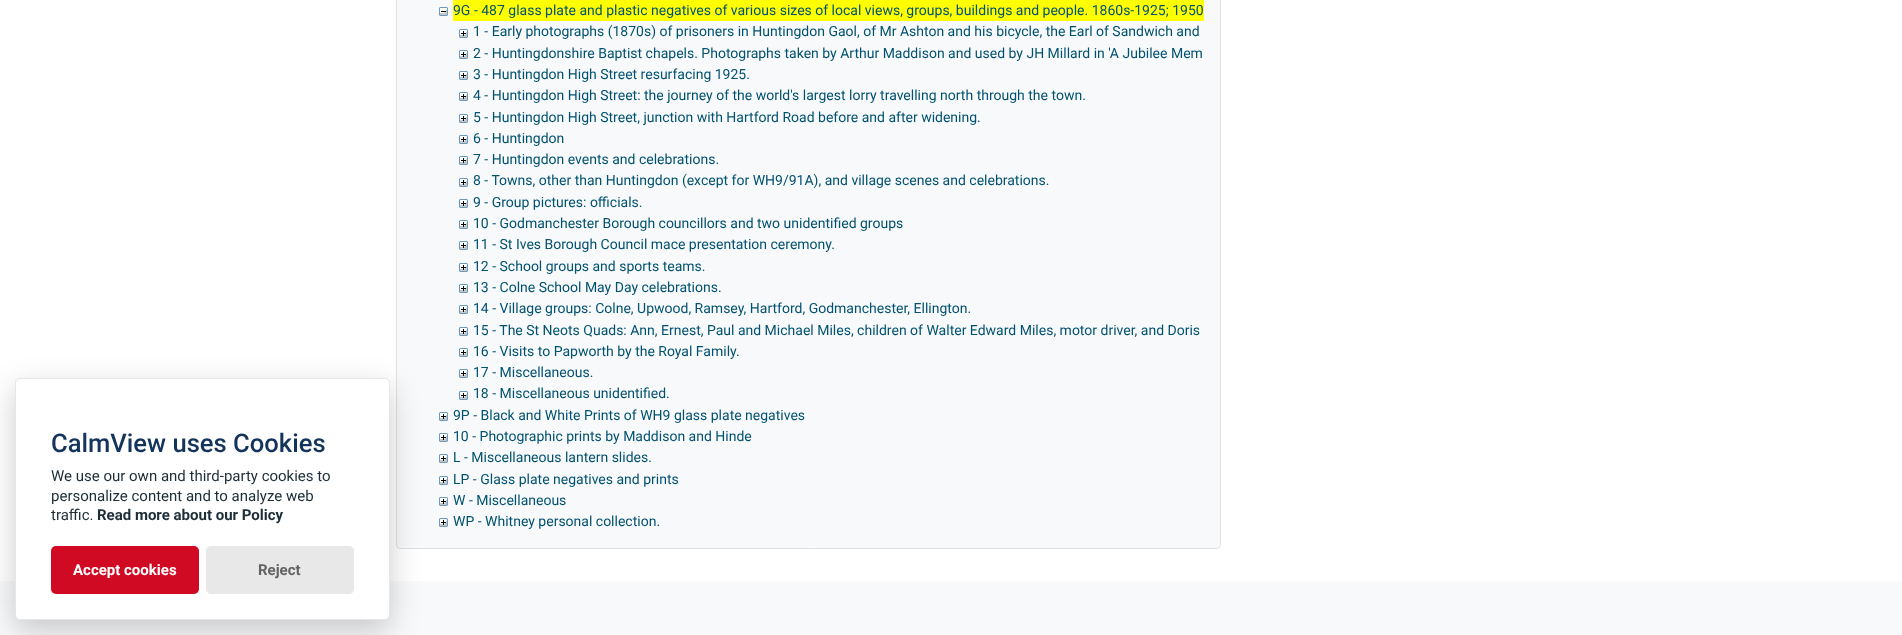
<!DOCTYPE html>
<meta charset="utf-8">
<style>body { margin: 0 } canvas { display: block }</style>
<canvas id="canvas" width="1902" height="635"></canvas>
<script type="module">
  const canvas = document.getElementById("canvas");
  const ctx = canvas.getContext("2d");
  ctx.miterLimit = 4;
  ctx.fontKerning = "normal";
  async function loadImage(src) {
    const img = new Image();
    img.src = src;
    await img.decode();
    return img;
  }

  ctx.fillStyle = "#ffffff";
  ctx.fillRect(0, 0, 1902, 635);
  ctx.fillStyle = "#f8f9fa";
  ctx.beginPath();
  ctx.roundRect(396.5, -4.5, 824, 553, 3.5);
  ctx.fill();
  ctx.strokeStyle = "#dee2e6";
  ctx.stroke();
  ctx.fillRect(0, 581, 1902, 54);
  ctx.fillStyle = "rgba(2, 2, 3, 0.2)";
  ctx.filter = "blur(15px)";
  ctx.beginPath();
  ctx.roundRect(15, 388, 375, 242, 5);
  ctx.fill();
  ctx.filter = "none";
  ctx.fillStyle = "#ffffff";
  ctx.beginPath();
  ctx.roundRect(15.5, 378.5, 374, 241, 4.5);
  ctx.fill();
  ctx.strokeStyle = "#e6e6e6";
  ctx.stroke();
  ctx.font = "500 25.6px Roboto";
  ctx.fillStyle = "#14345c";
  ctx.fillText("CalmView uses Cookies", 51, 452);
  ctx.font = "15px Roboto";
  ctx.fillStyle = "#1d2e38";
  ctx.fillText("We use our own and third-party cookies to", 51, 481);
  ctx.fillText("personalize content and to analyze web", 51, 501);
  ctx.fillText("traffic.", 51, 520);
  ctx.font = "bold 15px Roboto";
  ctx.fillText("Read more about our Policy", 97, 520);
  ctx.fillStyle = "#d10a24";
  ctx.beginPath();
  ctx.roundRect(51, 546, 148, 48, 5);
  ctx.fill();
  ctx.fillStyle = "#ffffff";
  ctx.fillText("Accept cookies", 73, 575);
  ctx.fillStyle = "#e8e8e8";
  ctx.beginPath();
  ctx.roundRect(206, 546, 148, 48, 5);
  ctx.fill();
  ctx.fillStyle = "#636363";
  ctx.fillText("Reject", 258, 575);
  ctx.drawImage(await loadImage("img1.png"), 439, 7, 9, 9);
  ctx.fillStyle = "#ffff00";
  ctx.fillRect(453, 0, 751, 21);
  ctx.font = "14px Roboto";
  ctx.fillStyle = "#005270";
  ctx.fillText("9G - 487 glass plate and plastic negatives of various sizes of local views, groups, buildings and people. 1860s-1925; 1950", 453, 15);
  ctx.drawImage(await loadImage("img2.png"), 459, 29, 9, 9);
  ctx.fillText("1 - Early photographs (1870s) of prisoners in Huntingdon Gaol, of Mr Ashton and his bicycle, the Earl of Sandwich and", 473, 36);
  ctx.drawImage(await loadImage("img2.png"), 459, 50, 9, 9);
  ctx.fillText("2 - Huntingdonshire Baptist chapels. Photographs taken by Arthur Maddison and used by JH Millard in 'A Jubilee Mem", 473, 58);
  ctx.drawImage(await loadImage("img2.png"), 459, 71, 9, 9);
  ctx.fillText("3 - Huntingdon High Street resurfacing 1925.", 473, 79);
  ctx.drawImage(await loadImage("img2.png"), 459, 92, 9, 9);
  ctx.fillText("4 - Huntingdon High Street: the journey of the world's largest lorry travelling north through the town.", 473, 100);
  ctx.drawImage(await loadImage("img2.png"), 459, 114, 9, 9);
  ctx.fillText("5 - Huntingdon High Street, junction with Hartford Road before and after widening.", 473, 122);
  ctx.drawImage(await loadImage("img2.png"), 459, 135, 9, 9);
  ctx.fillText("6 - Huntingdon", 473, 143);
  ctx.drawImage(await loadImage("img2.png"), 459, 156, 9, 9);
  ctx.fillText("7 - Huntingdon events and celebrations.", 473, 164);
  ctx.drawImage(await loadImage("img2.png"), 459, 178, 9, 9);
  ctx.fillText("8 - Towns, other than Huntingdon (except for WH9/91A), and village scenes and celebrations.", 473, 185);
  ctx.drawImage(await loadImage("img2.png"), 459, 199, 9, 9);
  ctx.fillText("9 - Group pictures: officials.", 473, 207);
  ctx.drawImage(await loadImage("img2.png"), 459, 220, 9, 9);
  ctx.fillText("10 - Godmanchester Borough councillors and two unidentified groups", 473, 228);
  ctx.drawImage(await loadImage("img2.png"), 459, 241, 9, 9);
  ctx.fillText("11 - St Ives Borough Council mace presentation ceremony.", 473, 249);
  ctx.drawImage(await loadImage("img2.png"), 459, 263, 9, 9);
  ctx.fillText("12 - School groups and sports teams.", 473, 271);
  ctx.drawImage(await loadImage("img2.png"), 459, 284, 9, 9);
  ctx.fillText("13 - Colne School May Day celebrations.", 473, 292);
  ctx.drawImage(await loadImage("img2.png"), 459, 305, 9, 9);
  ctx.fillText("14 - Village groups: Colne, Upwood, Ramsey, Hartford, Godmanchester, Ellington.", 473, 313);
  ctx.drawImage(await loadImage("img2.png"), 459, 327, 9, 9);
  ctx.fillText("15 - The St Neots Quads: Ann, Ernest, Paul and Michael Miles, children of Walter Edward Miles, motor driver, and Doris", 473, 335);
  ctx.drawImage(await loadImage("img2.png"), 459, 348, 9, 9);
  ctx.fillText("16 - Visits to Papworth by the Royal Family.", 473, 356);
  ctx.drawImage(await loadImage("img2.png"), 459, 369, 9, 9);
  ctx.fillText("17 - Miscellaneous.", 473, 377);
  ctx.drawImage(await loadImage("img2.png"), 459, 391, 9, 9);
  ctx.fillText("18 - Miscellaneous unidentified.", 473, 398);
  ctx.drawImage(await loadImage("img2.png"), 439, 412, 9, 9);
  ctx.fillText("9P - Black and White Prints of WH9 glass plate negatives", 453, 420);
  ctx.drawImage(await loadImage("img2.png"), 439, 433, 9, 9);
  ctx.fillText("10 - Photographic prints by Maddison and Hinde", 453, 441);
  ctx.drawImage(await loadImage("img2.png"), 439, 454, 9, 9);
  ctx.fillText("L - Miscellaneous lantern slides.", 453, 462);
  ctx.drawImage(await loadImage("img2.png"), 439, 476, 9, 9);
  ctx.fillText("LP - Glass plate negatives and prints", 453, 484);
  ctx.drawImage(await loadImage("img2.png"), 439, 497, 9, 9);
  ctx.fillText("W - Miscellaneous", 453, 505);
  ctx.drawImage(await loadImage("img2.png"), 439, 518, 9, 9);
  ctx.fillText("WP - Whitney personal collection.", 453, 526);
</script>
